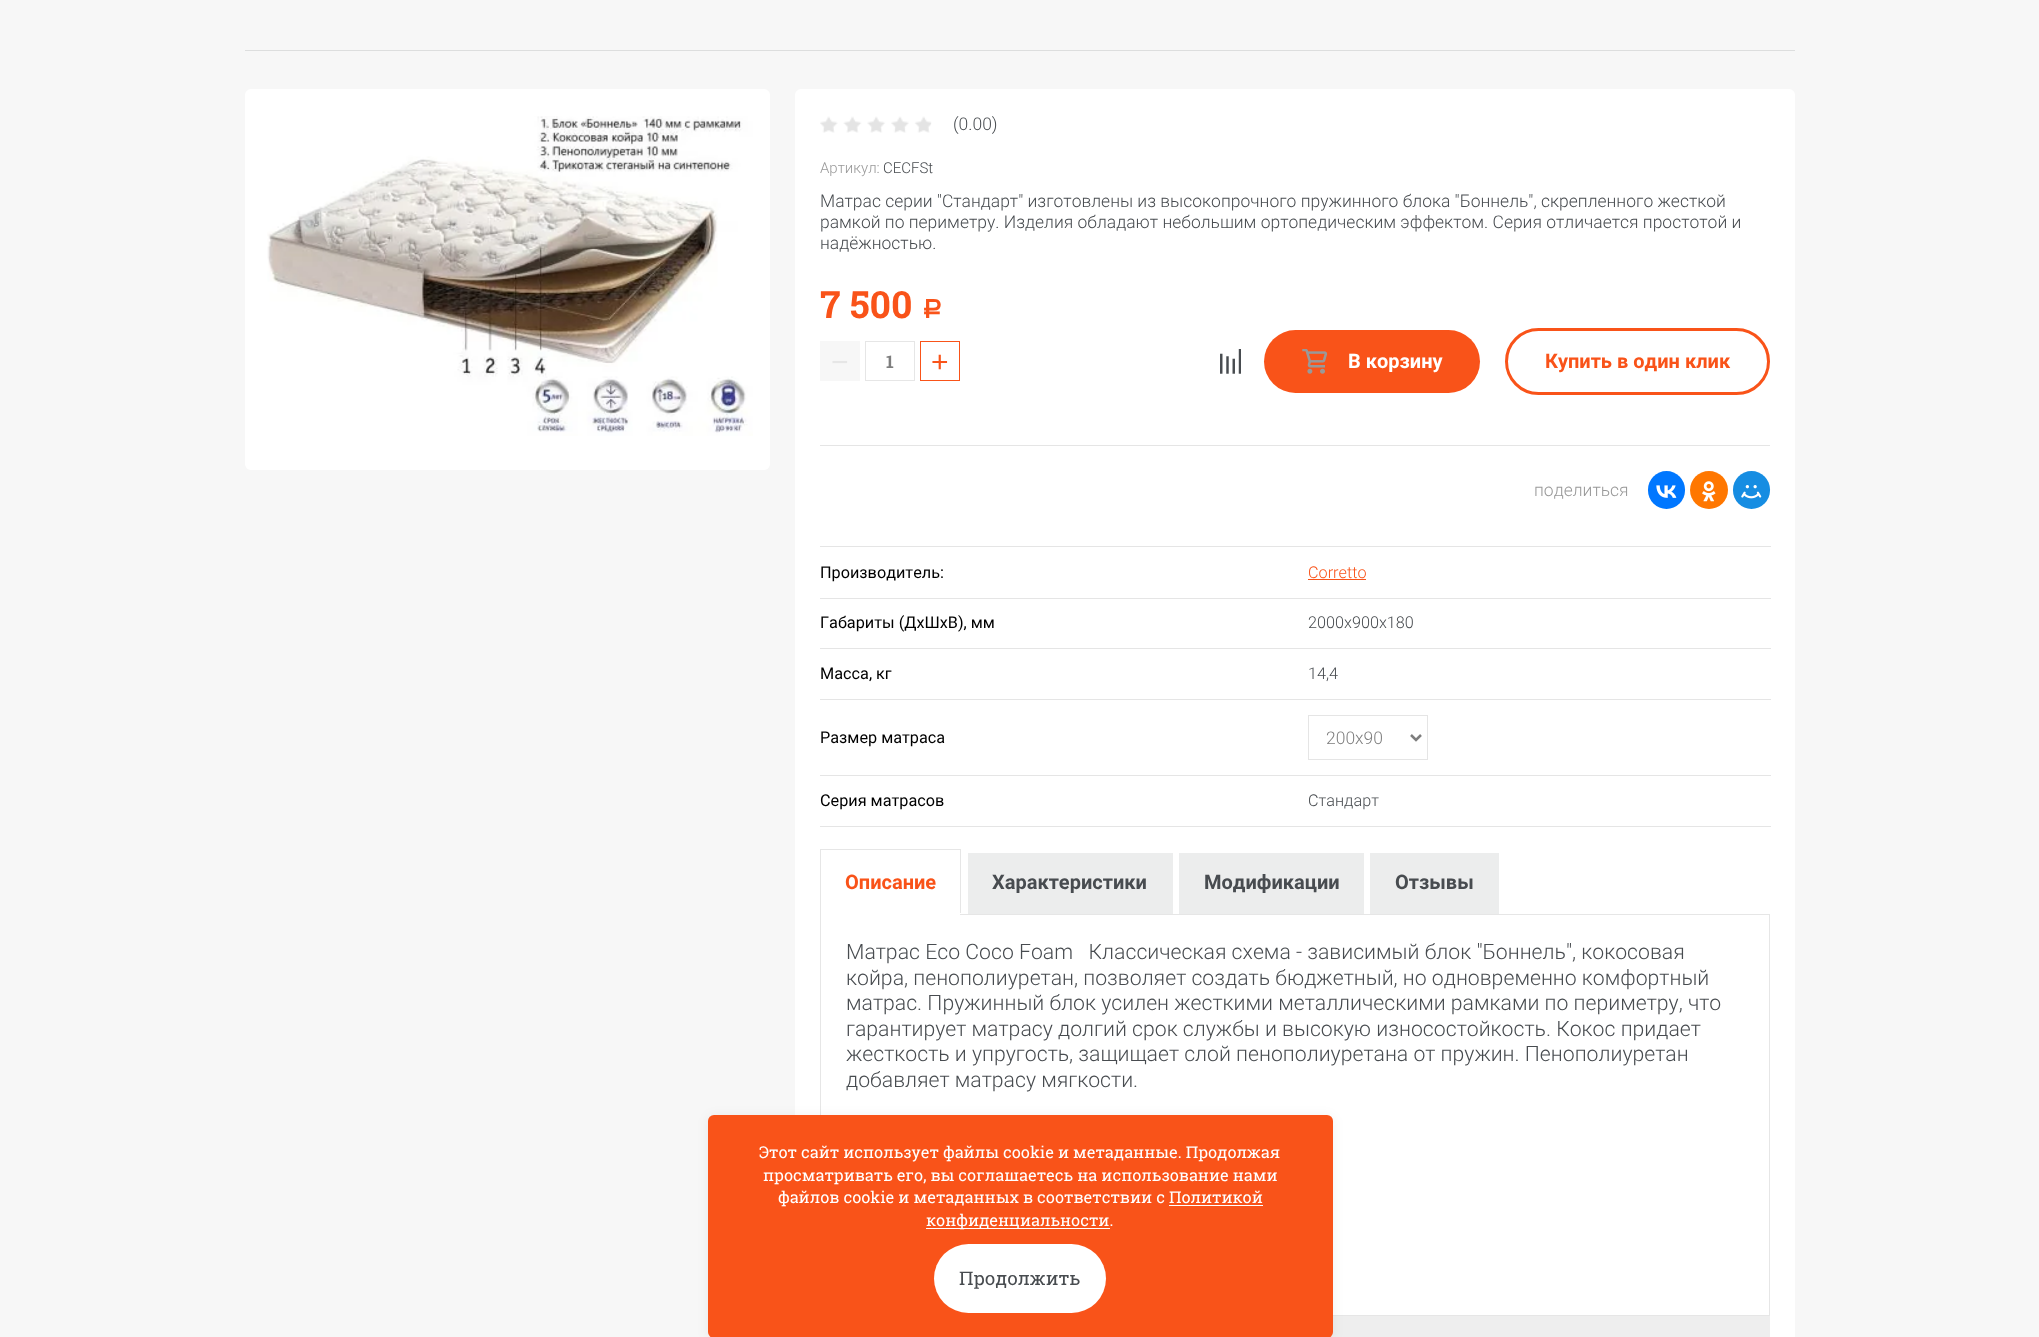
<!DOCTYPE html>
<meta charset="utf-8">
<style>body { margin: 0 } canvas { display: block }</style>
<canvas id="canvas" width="2039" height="1337"></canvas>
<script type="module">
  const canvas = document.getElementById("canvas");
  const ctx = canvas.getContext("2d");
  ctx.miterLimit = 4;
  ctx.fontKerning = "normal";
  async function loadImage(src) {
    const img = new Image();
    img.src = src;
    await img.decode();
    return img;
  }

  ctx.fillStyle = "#f7f7f7";
  ctx.fillRect(0, 0, 2039, 1337);
  ctx.fillStyle = "#dddede";
  ctx.fillRect(245, 50, 1550, 1);
  ctx.fillStyle = "#ffffff";
  ctx.beginPath();
  ctx.roundRect(245, 89, 525, 381, 6);
  ctx.fill();
  ctx.drawImage(await loadImage("img1.png"), 267, 116, 486, 320);
  ctx.beginPath();
  ctx.roundRect(795, 89, 1000, 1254, 6);
  ctx.fill();
  ctx.drawImage(await loadImage("img2.png"), 820, 116, 112, 17);
  ctx.font = "300 17.5px Roboto";
  ctx.fillStyle = "#484c50";
  ctx.fillText("(0.00)", 953, 130);
  ctx.font = "300 15px Roboto";
  ctx.fillStyle = "#999999";
  ctx.fillText("Артикул:", 820, 173);
  ctx.fillStyle = "#484c50";
  ctx.fillText("CECFSt", 883, 173);
  ctx.font = "300 17.5px Roboto";
  ctx.fillText("Матрас серии \"Стандарт\" изготовлены из высокопрочного пружинного блока \"Боннель\", скрепленного жесткой", 820, 207);
  ctx.fillText("рамкой по периметру. Изделия обладают небольшим ортопедическим эффектом. Серия отличается простотой и", 820, 228);
  ctx.fillText("надёжностью.", 820, 249);
  ctx.font = "bold 37.5px Roboto Slab";
  ctx.fillStyle = "#f95319";
  ctx.fillText("7 500", 820, 318);
  ctx.font = "bold 26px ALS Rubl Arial";
  ctx.fillText("Р", 922, 318);
  ctx.fillStyle = "#f7f7f7";
  ctx.fillRect(820, 341, 40, 40);
  ctx.font = "30px Liberation Sans";
  ctx.fillStyle = "#e6e6e6";
  ctx.fillText("−", 831, 372);
  ctx.strokeStyle = "#e6e6e6";
  ctx.strokeRect(865.5, 341.5, 49, 39);
  ctx.font = "bold 17.5px Roboto Slab";
  ctx.fillStyle = "#7e7e7e";
  ctx.fillText("1", 886, 368);
  ctx.strokeStyle = "#f95319";
  ctx.strokeRect(920.5, 341.5, 39, 39);
  ctx.font = "30px Liberation Sans";
  ctx.fillStyle = "#f95319";
  ctx.fillText("+", 931, 372);
  ctx.drawImage(await loadImage("img3.png"), 1220, 349, 21, 25);
  ctx.beginPath();
  ctx.roundRect(1264, 330, 216, 63, 31.5);
  ctx.fill();
  ctx.drawImage(await loadImage("img4.png"), 1302, 349, 26, 25);
  ctx.font = "bold 20px Roboto";
  ctx.fillStyle = "#ffffff";
  ctx.fillText("В корзину", 1348, 368);
  ctx.beginPath();
  ctx.roundRect(1506.5, 329.5, 262, 64, 32);
  ctx.lineWidth = 3;
  ctx.stroke();
  ctx.fillStyle = "#f95319";
  ctx.fillText("Купить в один клик", 1545, 368);
  ctx.fillStyle = "#e5e5e5";
  ctx.fillRect(820, 445, 950, 1);
  ctx.font = "300 17.5px Roboto";
  ctx.fillStyle = "#999999";
  ctx.fillText("поделиться", 1534, 496);
  ctx.fillStyle = "#0077ff";
  ctx.beginPath();
  ctx.roundRect(1648, 471, 37, 38, 18.5);
  ctx.fill();
  ctx.drawImage(await loadImage("img5.png"), 1656, 485, 21, 13);
  ctx.fillStyle = "#ff7700";
  ctx.beginPath();
  ctx.arc(1709, 490, 19, 0, Math.PI * 2);
  ctx.fill();
  ctx.drawImage(await loadImage("img6.png"), 1702, 481, 14, 21);
  ctx.fillStyle = "#168de2";
  ctx.beginPath();
  ctx.roundRect(1733, 471, 37, 38, 18.5);
  ctx.fill();
  ctx.drawImage(await loadImage("img7.png"), 1741, 485, 21, 14);
  ctx.font = "16.25px Roboto";
  ctx.fillStyle = "#000000";
  ctx.fillText("Производитель:", 820, 578);
  ctx.fillStyle = "#e5e5e5";
  ctx.fillRect(820, 546, 951, 1);
  ctx.font = "300 16.25px Roboto";
  ctx.fillStyle = "#f95319";
  ctx.fillText("Corretto", 1308, 578);
  ctx.fillRect(1308, 579, 58, 1);
  ctx.font = "16.25px Roboto";
  ctx.fillStyle = "#000000";
  ctx.fillText("Габариты (ДхШхВ), мм", 820, 628);
  ctx.fillStyle = "#e5e5e5";
  ctx.fillRect(820, 598, 951, 1);
  ctx.font = "300 16.25px Roboto";
  ctx.fillStyle = "#484c50";
  ctx.fillText("2000x900x180", 1308, 628);
  ctx.font = "16.25px Roboto";
  ctx.fillStyle = "#000000";
  ctx.fillText("Масса, кг", 820, 679);
  ctx.fillStyle = "#e5e5e5";
  ctx.fillRect(820, 648, 951, 1);
  ctx.font = "300 16.25px Roboto";
  ctx.fillStyle = "#484c50";
  ctx.fillText("14,4", 1308, 679);
  ctx.font = "16.25px Roboto";
  ctx.fillStyle = "#000000";
  ctx.fillText("Размер матраса", 820, 743);
  ctx.fillStyle = "#e5e5e5";
  ctx.fillRect(820, 699, 951, 1);
  ctx.strokeStyle = "#e5e5e5";
  ctx.lineWidth = 1;
  ctx.strokeRect(1308.5, 715.5, 119, 44);
  ctx.beginPath();
  ctx.moveTo(1411, 735);
  ctx.lineTo(1416, 740);
  ctx.lineTo(1421, 735);
  ctx.strokeStyle = "#7e7e7e";
  ctx.lineWidth = 2.5;
  ctx.stroke();
  ctx.font = "300 17.5px Roboto";
  ctx.fillStyle = "#7e7e7e";
  ctx.fillText("200x90", 1326, 744);
  ctx.font = "16.25px Roboto";
  ctx.fillStyle = "#000000";
  ctx.fillText("Серия матрасов", 820, 806);
  ctx.fillStyle = "#e5e5e5";
  ctx.fillRect(820, 775, 951, 1);
  ctx.fillRect(820, 826, 951, 1);
  ctx.font = "300 16.25px Roboto";
  ctx.fillStyle = "#484c50";
  ctx.fillText("Стандарт", 1308, 806);
  ctx.fillStyle = "#e6e6e6";
  ctx.fillRect(820, 849, 141, 1);
  ctx.fillRect(960, 849, 1, 65);
  ctx.fillStyle = "#ffffff";
  ctx.fillRect(960, 913, 1, 1);
  ctx.fillStyle = "#e6e6e6";
  ctx.fillRect(820, 849, 1, 65);
  ctx.font = "bold 20px Roboto";
  ctx.fillStyle = "#f95319";
  ctx.fillText("Описание", 845, 889);
  ctx.strokeStyle = "#e6e6e6";
  ctx.lineWidth = 1;
  ctx.strokeRect(820.5, 914.5, 949, 401);
  ctx.fillStyle = "#ffffff";
  ctx.fillRect(821, 914, 139, 1);
  ctx.fillStyle = "#eceded";
  ctx.fillRect(968, 853, 205, 61);
  ctx.fillStyle = "#484c50";
  ctx.fillText("Характеристики", 992, 889);
  ctx.fillStyle = "#eceded";
  ctx.fillRect(1179, 853, 185, 61);
  ctx.fillStyle = "#484c50";
  ctx.fillText("Модификации", 1204, 889);
  ctx.fillStyle = "#eceded";
  ctx.fillRect(1370, 853, 129, 61);
  ctx.fillStyle = "#484c50";
  ctx.fillText("Отзывы", 1395, 889);
  ctx.font = "300 21.25px Roboto";
  ctx.fillText("Матрас Eco Coco Foam   Классическая схема - зависимый блок \"Боннель\", кокосовая", 846, 959);
  ctx.fillText("койра, пенополиуретан, позволяет создать бюджетный, но одновременно комфортный", 846, 985);
  ctx.fillText("матрас. Пружинный блок усилен жесткими металлическими рамками по периметру, что", 846, 1010);
  ctx.fillText("гарантирует матрасу долгий срок службы и высокую износостойкость. Кокос придает", 846, 1036);
  ctx.fillText("жесткость и упругость, защищает слой пенополиуретана от пружин. Пенополиуретан", 846, 1061);
  ctx.fillText("добавляет матрасу мягкости.", 846, 1087);
  ctx.fillStyle = "#eeeeee";
  ctx.fillRect(1330, 1316, 440, 21);
  ctx.fillStyle = "rgba(0, 0, 0, 0.06)";
  ctx.filter = "blur(6px)";
  ctx.beginPath();
  ctx.roundRect(708, 1116, 625, 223, 6);
  ctx.fill();
  ctx.filter = "none";
  ctx.fillStyle = "#f95319";
  ctx.beginPath();
  ctx.roundRect(708, 1115, 625, 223, 6);
  ctx.fill();
  ctx.font = "16.25px Roboto Slab";
  ctx.fillStyle = "#ffffff";
  ctx.fillText("Этот сайт использует файлы cookie и метаданные. Продолжая", 759, 1158);
  ctx.fillText("просматривать его, вы соглашаетесь на использование нами", 763, 1181);
  ctx.fillText("файлов cookie и метаданных в соответствии с Политикой", 778, 1203);
  ctx.fillRect(926, 1228, 184, 1);
  ctx.fillText("конфиденциальности.", 926, 1226);
  ctx.fillRect(1169, 1205, 94, 1);
  ctx.beginPath();
  ctx.roundRect(934, 1244, 172, 69, 34.5);
  ctx.fill();
  ctx.font = "18.75px Roboto Slab";
  ctx.fillStyle = "#484c50";
  ctx.fillText("Продолжить", 959, 1285);
</script>
